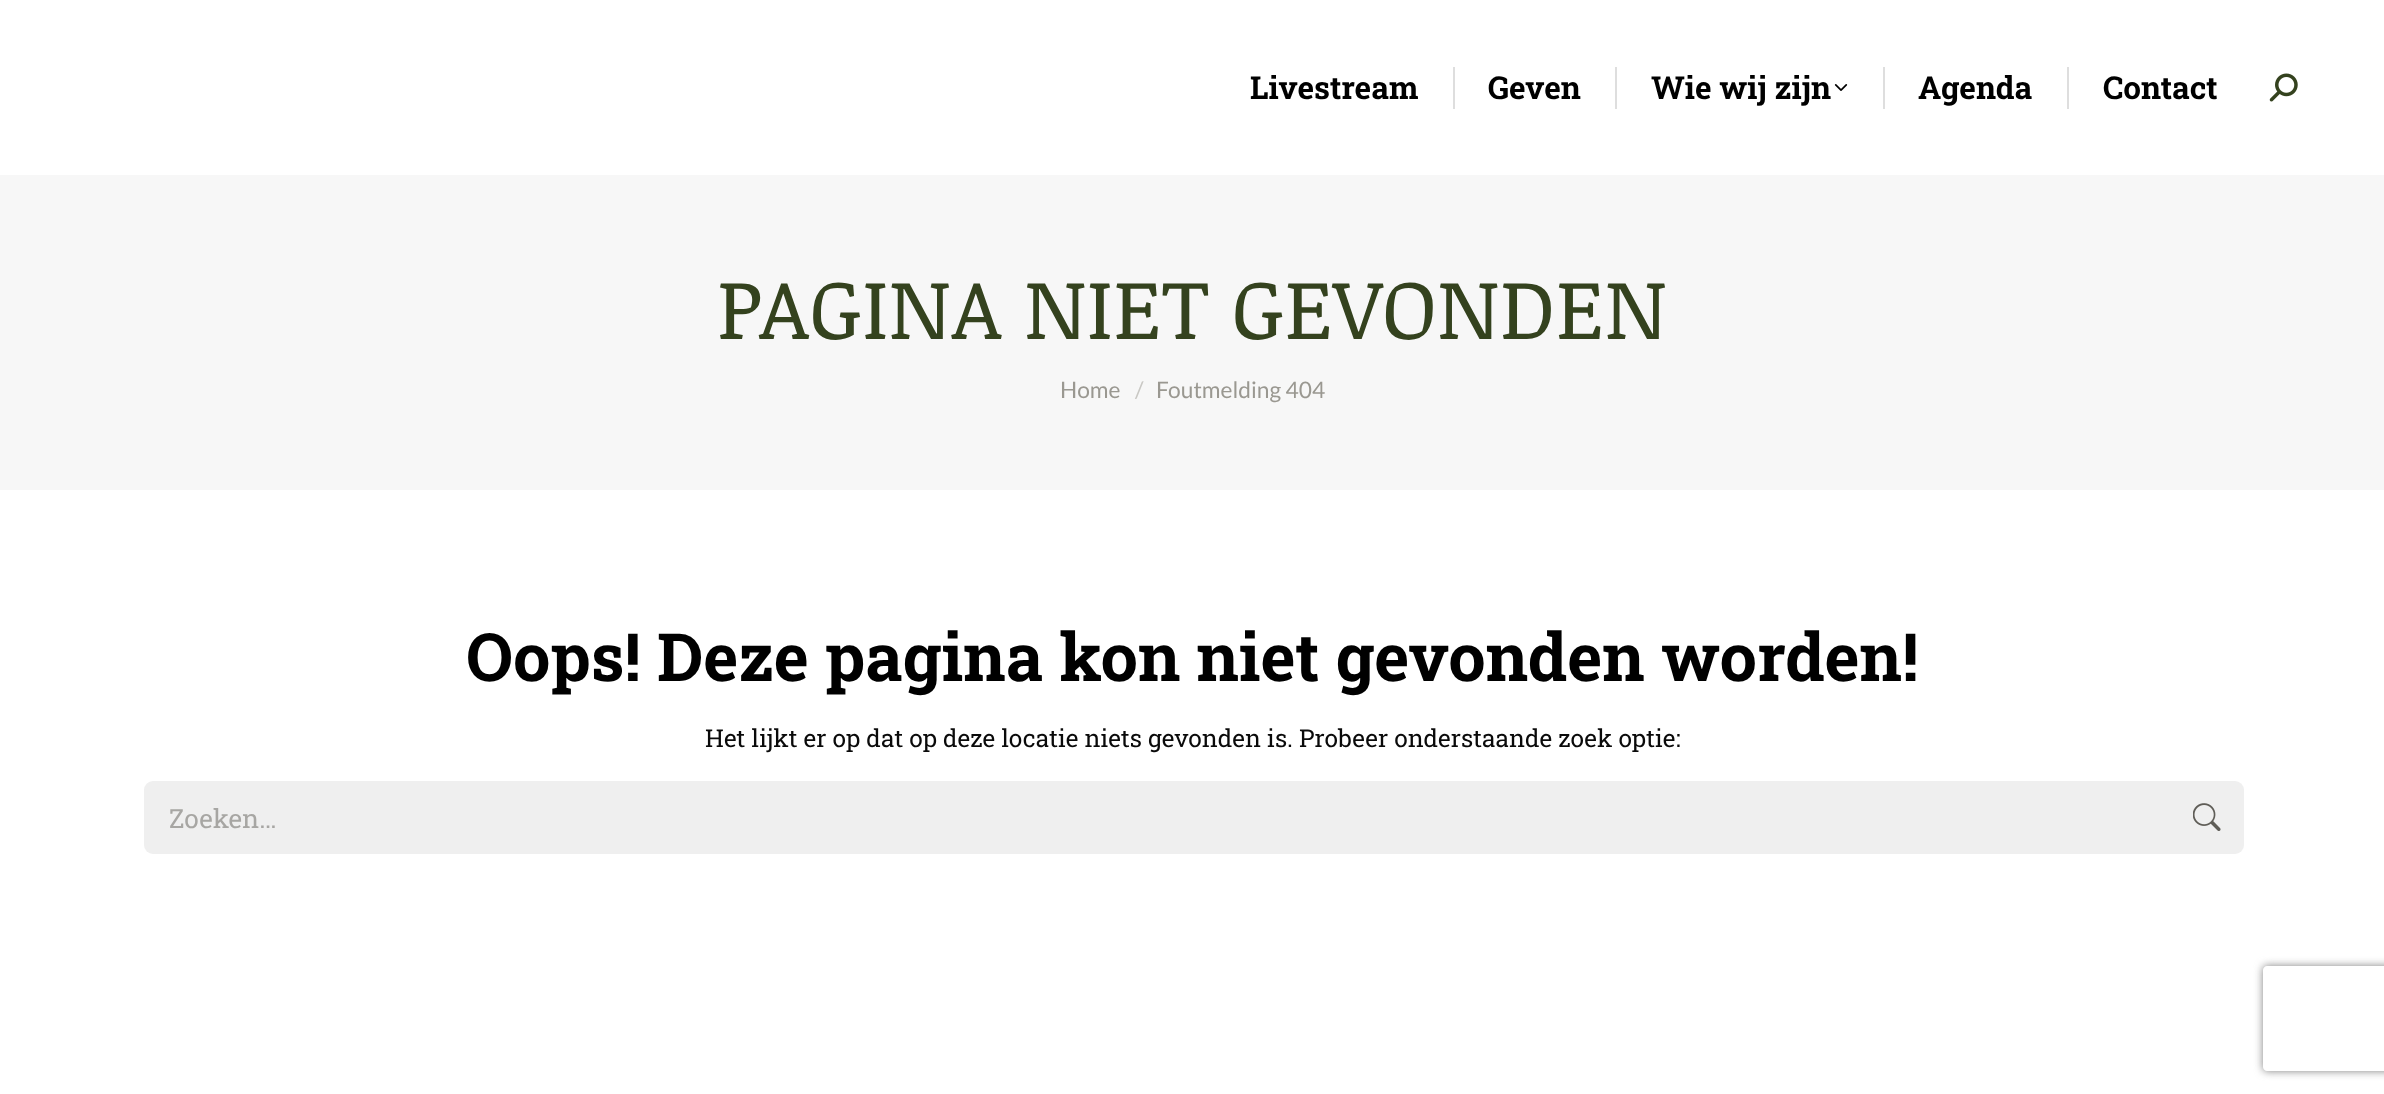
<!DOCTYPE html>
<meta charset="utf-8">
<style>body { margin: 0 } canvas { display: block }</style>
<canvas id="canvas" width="2384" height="1094"></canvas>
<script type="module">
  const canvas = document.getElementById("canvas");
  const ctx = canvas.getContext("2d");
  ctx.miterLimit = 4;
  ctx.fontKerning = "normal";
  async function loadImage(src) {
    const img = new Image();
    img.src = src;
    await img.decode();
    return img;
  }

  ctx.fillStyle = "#ffffff";
  ctx.fillRect(0, 0, 2384, 1094);
  ctx.font = "bold 31.5px Roboto Slab";
  ctx.fillStyle = "#000000";
  ctx.fillText("Livestream", 1250, 99);
  ctx.fillStyle = "#dedede";
  ctx.fillRect(1453, 67, 2, 42);
  ctx.fillStyle = "#000000";
  ctx.fillText("Geven", 1488, 99);
  ctx.fillStyle = "#dedede";
  ctx.fillRect(1615, 67, 2, 42);
  ctx.fillStyle = "#000000";
  ctx.fillText("Wie wij zijn", 1651, 99);
  ctx.drawImage(await loadImage("img1.png"), 1834, 84, 14, 7);
  ctx.fillStyle = "#dedede";
  ctx.fillRect(1883, 67, 2, 42);
  ctx.fillStyle = "#000000";
  ctx.fillText("Agenda", 1918, 99);
  ctx.fillStyle = "#dedede";
  ctx.fillRect(2067, 67, 2, 42);
  ctx.fillStyle = "#000000";
  ctx.fillText("Contact", 2103, 99);
  ctx.drawImage(await loadImage("img2.png"), 2269, 73, 29, 29);
  ctx.fillStyle = "#f7f7f7";
  ctx.fillRect(0, 175, 2384, 315);
  ctx.font = "84px Noticia Text";
  ctx.fillStyle = "#34421e";
  ctx.fillText("PAGINA NIET GEVONDEN", 717, 339);
  ctx.font = "22.75px Lato";
  ctx.fillStyle = "#9a9891";
  ctx.fillText("Home", 1060, 398);
  ctx.fillStyle = "#c9c8c4";
  ctx.fillText("/", 1135, 398);
  ctx.fillStyle = "#9a9891";
  ctx.fillText("Foutmelding 404", 1156, 398);
  ctx.font = "bold 66.5px Roboto Slab";
  ctx.fillStyle = "#000000";
  ctx.fillText("Oops! Deze pagina kon niet gevonden worden!", 466, 681);
  ctx.font = "24.5px Roboto Slab";
  ctx.fillStyle = "#0a0a0a";
  ctx.fillText("Het lijkt er op dat op deze locatie niets gevonden is. Probeer onderstaande zoek optie:", 705, 747);
  ctx.fillStyle = "#efefef";
  ctx.beginPath();
  ctx.roundRect(144, 781, 2100, 73, 9);
  ctx.fill();
  ctx.font = "26.25px Roboto Slab";
  ctx.fillStyle = "#a7a6a3";
  ctx.fillText("Zoeken…", 169, 828);
  ctx.drawImage(await loadImage("img3.png"), 2193, 803, 28, 28);
  ctx.save();
  ctx.beginPath();
  ctx.moveTo(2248, 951);
  ctx.lineTo(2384, 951);
  ctx.lineTo(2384, 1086);
  ctx.lineTo(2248, 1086);
  ctx.closePath();
  ctx.moveTo(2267, 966);
  ctx.lineTo(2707, 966);
  ctx.bezierCurveTo(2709, 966, 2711, 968, 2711, 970);
  ctx.lineTo(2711, 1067);
  ctx.bezierCurveTo(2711, 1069, 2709, 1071, 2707, 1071);
  ctx.lineTo(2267, 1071);
  ctx.bezierCurveTo(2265, 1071, 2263, 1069, 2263, 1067);
  ctx.lineTo(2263, 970);
  ctx.bezierCurveTo(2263, 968, 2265, 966, 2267, 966);
  ctx.closePath();
  ctx.clip("evenodd");
  ctx.fillStyle = "#808080";
  ctx.filter = "blur(4.5px)";
  ctx.beginPath();
  ctx.roundRect(2263, 966, 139, 105, 4);
  ctx.fill();
  ctx.filter = "none";
  ctx.restore();
</script>
